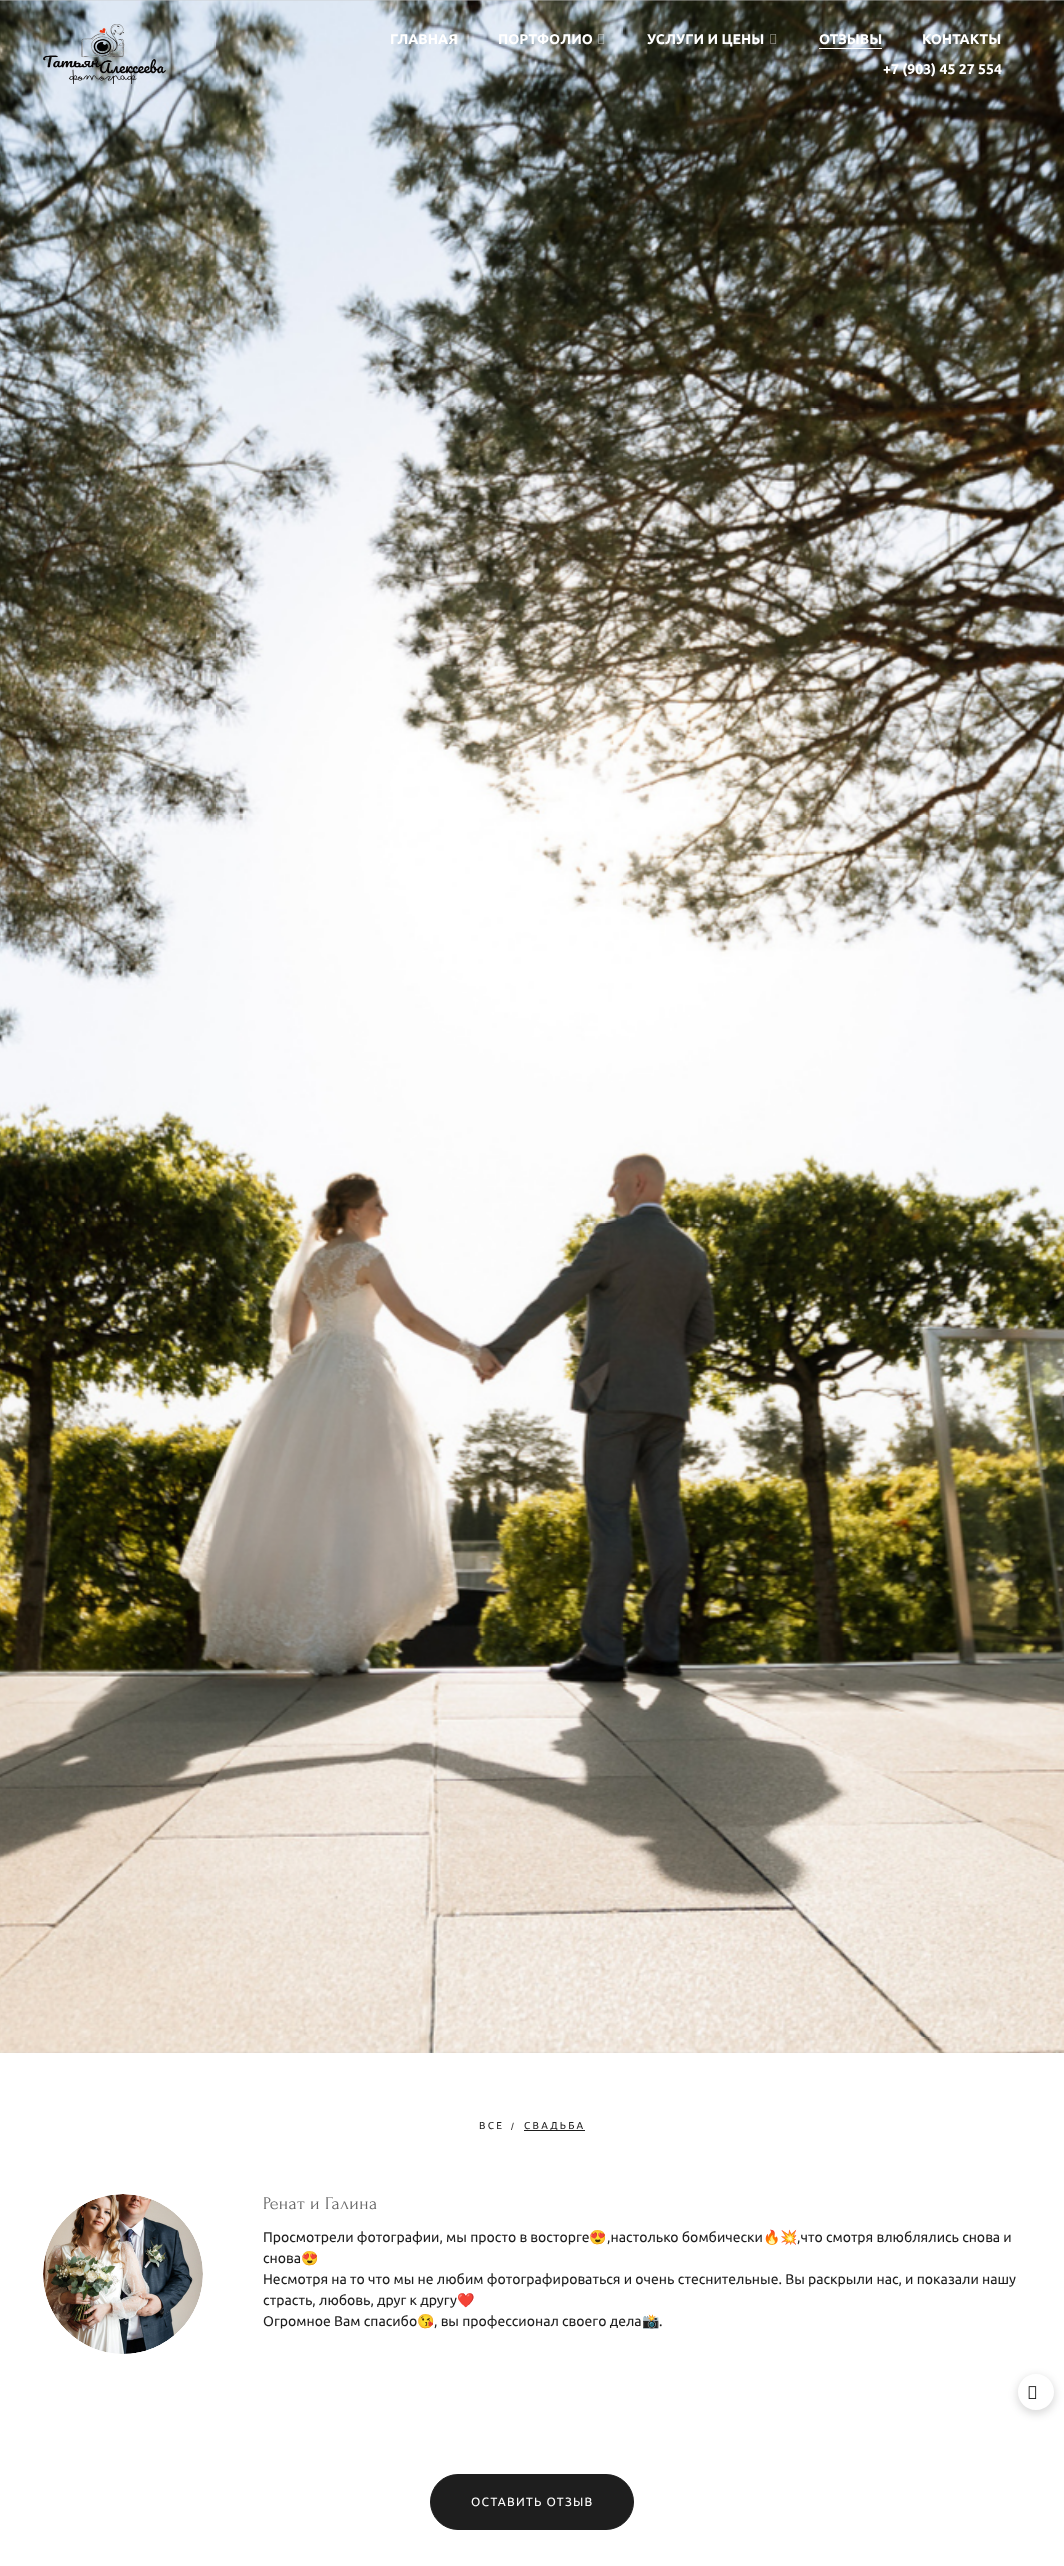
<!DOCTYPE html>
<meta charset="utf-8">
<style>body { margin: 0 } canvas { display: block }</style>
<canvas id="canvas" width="1064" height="2566"></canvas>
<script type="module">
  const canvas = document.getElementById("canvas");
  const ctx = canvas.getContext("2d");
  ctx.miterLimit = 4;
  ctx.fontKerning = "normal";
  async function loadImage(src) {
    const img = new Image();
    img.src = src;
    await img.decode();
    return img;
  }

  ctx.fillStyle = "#ffffff";
  ctx.fillRect(0, 0, 1064, 2566);
  ctx.fillStyle = "#c9c9c9";
  ctx.fillRect(0, 0, 1064, 2053);
  ctx.drawImage(await loadImage("img1.png"), 0, 0, 1064, 2053);
  ctx.drawImage(await loadImage("img2.png"), 43, 24, 123, 60);
  ctx.font = "bold 14px Ubuntu";
  ctx.fillStyle = "#ffffff";
  ctx.fillText("ГЛАВНАЯ", 390, 44);
  ctx.fillText("ПОРТФОЛИО", 498, 44);
  ctx.drawImage(await loadImage("img3.png"), 598, 34, 7, 10);
  ctx.fillText("УСЛУГИ И ЦЕНЫ", 647, 44);
  ctx.drawImage(await loadImage("img4.png"), 770, 34, 7, 10);
  ctx.fillText("ОТЗЫВЫ", 819, 44);
  ctx.fillRect(819, 48, 63, 1);
  ctx.fillText("КОНТАКТЫ", 922, 44);
  ctx.fillText("+7 (903) 45 27 554", 883, 74);
  ctx.letterSpacing = "2.25px";
  ctx.font = "10px Ubuntu";
  ctx.fillStyle = "#1e1e1e";
  ctx.fillText("ВСЕ", 479, 2129);
  ctx.font = "10px Liberation Sans";
  ctx.fillText("/", 511, 2130);
  ctx.fillRect(524, 2130, 61, 1);
  ctx.font = "10px Ubuntu";
  ctx.fillText("СВАДЬБА", 524, 2129);
  ctx.drawImage(await loadImage("img5.png"), 43, 2194, 160, 160);
  ctx.letterSpacing = "0.4px";
  ctx.font = "18px Forum";
  ctx.fillStyle = "#656565";
  ctx.fillText("Ренат и Галина", 263, 2209);
  ctx.letterSpacing = "0px";
  ctx.font = "14px Ubuntu";
  ctx.fillStyle = "#1e1e1e";
  ctx.fillText("Просмотрели фотографии, мы просто в восторге", 263, 2242);
  ctx.font = "14px Noto Color Emoji";
  ctx.fillText("😍", 589, 2242);
  ctx.font = "14px Ubuntu";
  ctx.fillText(",настолько бомбически", 607, 2242);
  ctx.font = "14px Noto Color Emoji";
  ctx.fillText("🔥💥", 763, 2242);
  ctx.font = "14px Ubuntu";
  ctx.fillText(",что смотря влюблялись снова и", 797, 2242);
  ctx.fillText("снова", 263, 2263);
  ctx.font = "14px Noto Color Emoji";
  ctx.fillText("😍", 301, 2263);
  ctx.font = "14px Ubuntu";
  ctx.fillText("Несмотря на то что мы не любим фотографироваться и очень стеснительные. Вы раскрыли нас, и показали нашу", 263, 2284);
  ctx.fillText("страсть, любовь, друг к другу", 263, 2305);
  ctx.font = "14px Noto Color Emoji";
  ctx.fillText("❤️", 457, 2305);
  ctx.font = "14px Ubuntu";
  ctx.fillText("Огромное Вам спасибо", 263, 2326);
  ctx.font = "14px Noto Color Emoji";
  ctx.fillText("😘", 417, 2326);
  ctx.font = "14px Ubuntu";
  ctx.fillText(", вы профессионал своего дела", 434, 2326);
  ctx.font = "14px Noto Color Emoji";
  ctx.fillText("📸", 642, 2326);
  ctx.font = "14px Ubuntu";
  ctx.fillText(".", 659, 2326);
  ctx.beginPath();
  ctx.roundRect(430.5, 2474.5, 203, 55, 27.5);
  ctx.fill();
  ctx.strokeStyle = "#1e1e1e";
  ctx.stroke();
  ctx.letterSpacing = "1.25px";
  ctx.font = "12px Ubuntu";
  ctx.fillStyle = "#ffffff";
  ctx.fillText("ОСТАВИТЬ ОТЗЫВ", 471, 2506);
  ctx.save();
  ctx.beginPath();
  ctx.moveTo(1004, 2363);
  ctx.lineTo(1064, 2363);
  ctx.lineTo(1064, 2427);
  ctx.lineTo(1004, 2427);
  ctx.closePath();
  ctx.moveTo(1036, 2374);
  ctx.bezierCurveTo(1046, 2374, 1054, 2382, 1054, 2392);
  ctx.bezierCurveTo(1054, 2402, 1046, 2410, 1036, 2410);
  ctx.bezierCurveTo(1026, 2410, 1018, 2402, 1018, 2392);
  ctx.bezierCurveTo(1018, 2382, 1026, 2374, 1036, 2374);
  ctx.closePath();
  ctx.clip("evenodd");
  ctx.fillStyle = "rgba(0, 0, 0, 0.15)";
  ctx.filter = "blur(4px)";
  ctx.beginPath();
  ctx.roundRect(1017, 2376, 38, 38, 19);
  ctx.fill();
  ctx.filter = "none";
  ctx.restore();
  ctx.drawImage(await loadImage("img6.png"), 1028, 2386, 9, 13);
</script>
